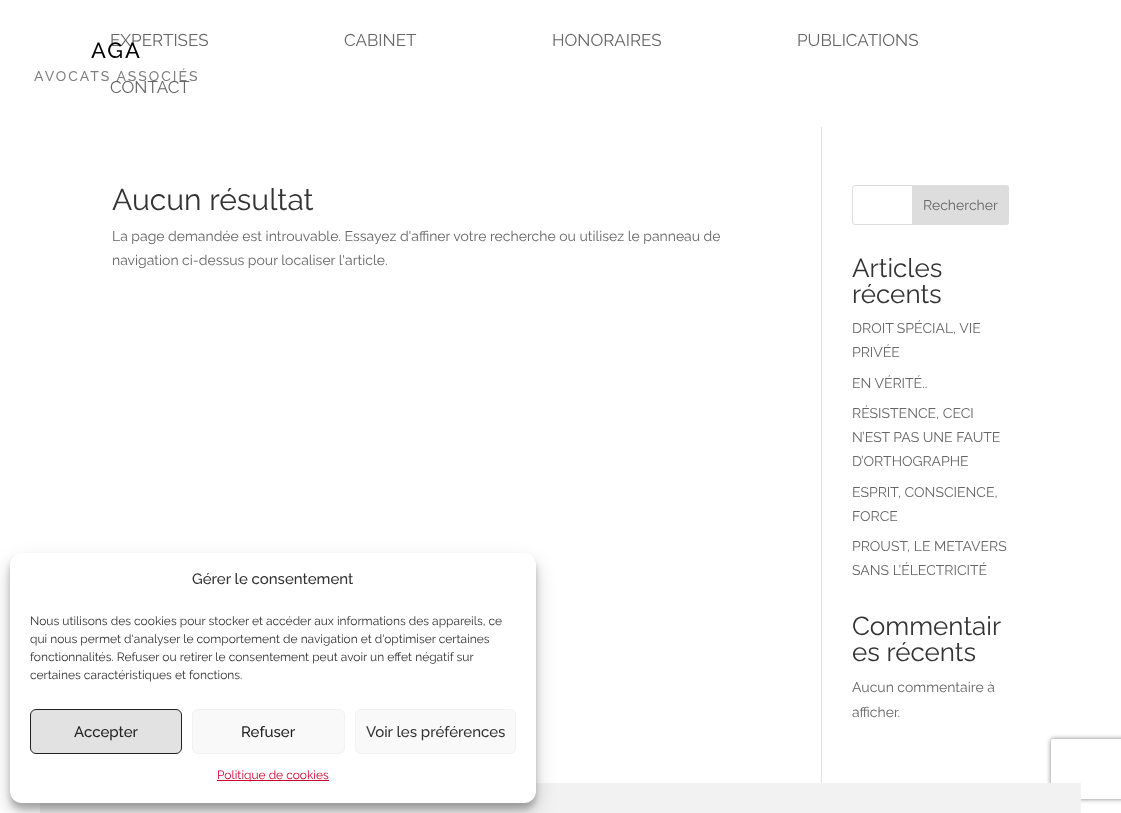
<!DOCTYPE html>
<meta charset="utf-8">
<style>body { margin: 0 } canvas { display: block }</style>
<canvas id="canvas" width="1121" height="813"></canvas>
<script type="module">
  const canvas = document.getElementById("canvas");
  const ctx = canvas.getContext("2d");
  ctx.miterLimit = 4;
  ctx.fontKerning = "normal";

  ctx.fillStyle = "#ffffff";
  ctx.fillRect(0, 0, 1121, 813);
  ctx.font = "17px Raleway";
  ctx.fillStyle = "#666666";
  ctx.fillText("EXPERTISES", 110, 46);
  ctx.fillText("CABINET", 344, 46);
  ctx.fillText("HONORAIRES", 552, 46);
  ctx.fillText("PUBLICATIONS", 797, 46);
  ctx.fillText("CONTACT", 110, 93);
  ctx.letterSpacing = "2px";
  ctx.font = "500 22px Raleway";
  ctx.fillStyle = "#000000";
  ctx.fillText("AGA", 91, 58);
  ctx.font = "500 14px Raleway";
  ctx.fillStyle = "#808080";
  ctx.fillText("AVOCATS ASSOCIÉS", 34, 81);
  ctx.fillStyle = "#e2e2e2";
  ctx.fillRect(821, 127, 1, 656);
  ctx.letterSpacing = "0px";
  ctx.font = "30px Raleway";
  ctx.fillStyle = "#333333";
  ctx.fillText("Aucun résultat", 112, 210);
  ctx.font = "14px Raleway";
  ctx.fillStyle = "#666666";
  ctx.fillText("La page demandée est introuvable. Essayez d'affiner votre recherche ou utilisez le panneau de", 112, 241);
  ctx.fillText("navigation ci-dessus pour localiser l'article.", 112, 265);
  ctx.beginPath();
  ctx.roundRect(852.5, 185.5, 156, 39, 2.5);
  ctx.strokeStyle = "#dddddd";
  ctx.stroke();
  ctx.fillStyle = "#dddddd";
  ctx.beginPath();
  ctx.roundRect(912.5, 185.5, 96, 39, [0, 2.5, 2.5, 0]);
  ctx.fill();
  ctx.stroke();
  ctx.fillStyle = "#666666";
  ctx.fillText("Rechercher", 923, 210);
  ctx.font = "26px Raleway";
  ctx.fillStyle = "#333333";
  ctx.fillText("Articles", 852, 277);
  ctx.fillText("récents", 852, 303);
  ctx.font = "14px Raleway";
  ctx.fillStyle = "#666666";
  ctx.fillText("DROIT SPÉCIAL, VIE", 852, 333);
  ctx.fillText("PRIVÉE", 852, 357);
  ctx.fillText("EN VÉRITÉ..", 852, 388);
  ctx.fillText("RÉSISTENCE, CECI", 852, 418);
  ctx.fillText("N’EST PAS UNE FAUTE", 852, 442);
  ctx.fillText("D’ORTHOGRAPHE", 852, 466);
  ctx.fillText("ESPRIT, CONSCIENCE,", 852, 497);
  ctx.fillText("FORCE", 852, 521);
  ctx.fillText("PROUST, LE METAVERS", 852, 551);
  ctx.fillText("SANS L’ÉLECTRICITÉ", 852, 575);
  ctx.font = "26px Raleway";
  ctx.fillStyle = "#333333";
  ctx.fillText("Commentair", 852, 635);
  ctx.fillText("es récents", 852, 661);
  ctx.font = "14px Raleway";
  ctx.fillStyle = "#666666";
  ctx.fillText("Aucun commentaire à", 852, 692);
  ctx.fillText("afficher.", 852, 717);
  ctx.save();
  ctx.beginPath();
  ctx.moveTo(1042, 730);
  ctx.lineTo(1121, 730);
  ctx.lineTo(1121, 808);
  ctx.lineTo(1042, 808);
  ctx.closePath();
  ctx.moveTo(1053, 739);
  ctx.lineTo(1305, 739);
  ctx.bezierCurveTo(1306, 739, 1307, 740, 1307, 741);
  ctx.lineTo(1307, 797);
  ctx.bezierCurveTo(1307, 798, 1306, 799, 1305, 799);
  ctx.lineTo(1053, 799);
  ctx.bezierCurveTo(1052, 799, 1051, 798, 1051, 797);
  ctx.lineTo(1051, 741);
  ctx.bezierCurveTo(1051, 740, 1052, 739, 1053, 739);
  ctx.closePath();
  ctx.clip("evenodd");
  ctx.fillStyle = "#808080";
  ctx.filter = "blur(2.5px)";
  ctx.beginPath();
  ctx.roundRect(1051, 739, 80, 60, 2);
  ctx.fill();
  ctx.filter = "none";
  ctx.restore();
  ctx.fillStyle = "#f2f2f2";
  ctx.fillRect(40, 783, 1041, 30);
  ctx.fillStyle = "rgba(0, 0, 0, 0.23)";
  ctx.filter = "blur(3px)";
  ctx.beginPath();
  ctx.roundRect(10, 559, 526, 250, 12);
  ctx.fill();
  ctx.filter = "none";
  ctx.fillStyle = "rgba(0, 0, 0, 0.19)";
  ctx.filter = "blur(10px)";
  ctx.beginPath();
  ctx.roundRect(10, 563, 526, 250, 12);
  ctx.fill();
  ctx.filter = "none";
  ctx.fillStyle = "#ffffff";
  ctx.beginPath();
  ctx.roundRect(10, 553, 526, 250, 12);
  ctx.fill();
  ctx.font = "500 15px Raleway";
  ctx.fillStyle = "#333333";
  ctx.fillText("Gérer le consentement", 192, 584);
  ctx.font = "12px Raleway";
  ctx.fillText("Nous utilisons des cookies pour stocker et accéder aux informations des appareils, ce", 30, 625);
  ctx.fillText("qui nous permet d'analyser le comportement de navigation et d'optimiser certaines", 30, 643);
  ctx.fillText("fonctionnalités. Refuser ou retirer le consentement peut avoir un effet négatif sur", 30, 661);
  ctx.fillText("certaines caractéristiques et fonctions.", 30, 679);
  ctx.fillStyle = "#e2e2e2";
  ctx.beginPath();
  ctx.roundRect(30.5, 709.5, 151, 44, 5.5);
  ctx.fill();
  ctx.strokeStyle = "#222222";
  ctx.stroke();
  ctx.font = "500 15px Raleway";
  ctx.fillStyle = "#222222";
  ctx.fillText("Accepter", 74, 737);
  ctx.fillStyle = "#f9f9f9";
  ctx.beginPath();
  ctx.roundRect(192.5, 709.5, 152, 44, 5.5);
  ctx.fill();
  ctx.strokeStyle = "#f2f2f2";
  ctx.stroke();
  ctx.fillStyle = "#222222";
  ctx.fillText("Refuser", 241, 737);
  ctx.fillStyle = "#f9f9f9";
  ctx.beginPath();
  ctx.roundRect(355.5, 709.5, 160, 44, 5.5);
  ctx.fill();
  ctx.stroke();
  ctx.fillStyle = "#333333";
  ctx.fillText("Voir les préférences", 366, 737);
  ctx.fillStyle = "#cf042e";
  ctx.fillRect(217, 780, 112, 1);
  ctx.font = "12px Raleway";
  ctx.fillText("Politique de cookies", 217, 779);
</script>
